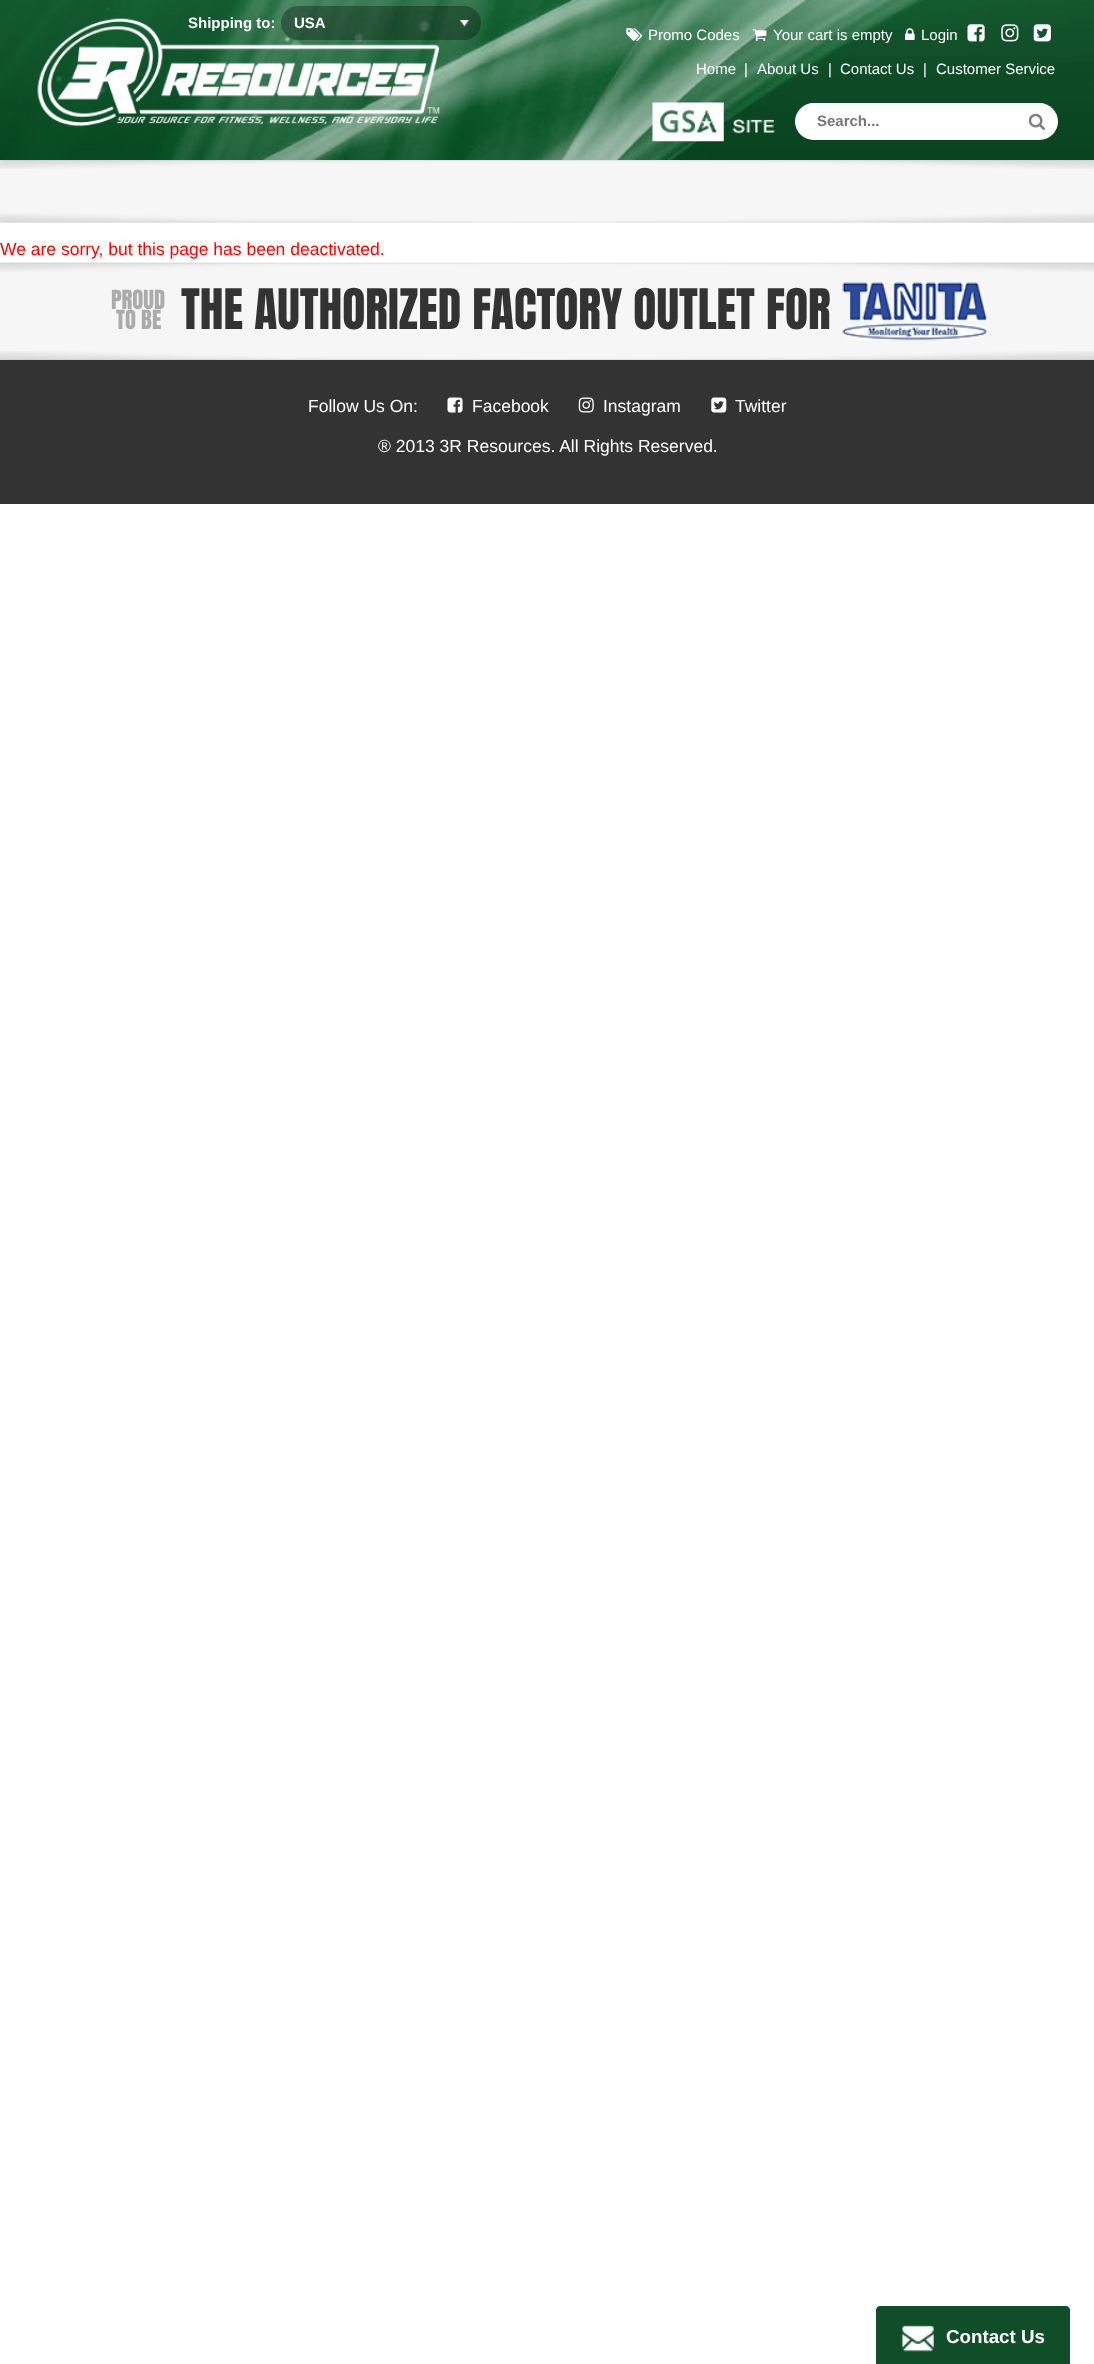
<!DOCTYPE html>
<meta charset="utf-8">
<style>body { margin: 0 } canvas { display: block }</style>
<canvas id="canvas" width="1094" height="2364"></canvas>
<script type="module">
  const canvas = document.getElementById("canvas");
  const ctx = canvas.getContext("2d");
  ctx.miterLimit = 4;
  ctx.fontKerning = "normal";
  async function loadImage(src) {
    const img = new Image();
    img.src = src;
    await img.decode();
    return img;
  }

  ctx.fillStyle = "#ffffff";
  ctx.fillRect(0, 0, 1094, 2364);
  ctx.drawImage(await loadImage("img1.png"), 0, 0, 1094, 160);
  ctx.drawImage(await loadImage("img11.png"), 37, 18, 403, 109);
  ctx.font = "bold 15px Liberation Sans";
  ctx.fillText("Shipping to:", 188, 28);
  ctx.fillStyle = "rgba(0, 0, 0, 0.3)";
  ctx.beginPath();
  ctx.roundRect(281, 6, 200, 34, 17);
  ctx.fill();
  ctx.drawImage(await loadImage("img2.png"), 460, 20, 9, 7);
  ctx.fillStyle = "#ffffff";
  ctx.fillText("USA", 294, 28);
  ctx.drawImage(await loadImage("img3.png"), 626, 28, 17, 13);
  ctx.font = "15px Liberation Sans";
  ctx.fillText("Promo Codes", 648, 40);
  ctx.drawImage(await loadImage("img4.png"), 752, 29, 15, 13);
  ctx.fillText("Your cart is empty", 773, 40);
  ctx.drawImage(await loadImage("img5.png"), 905, 28, 10, 12);
  ctx.fillText("Login", 921, 40);
  ctx.drawImage(await loadImage("img6.png"), 967, 24, 18, 18);
  ctx.drawImage(await loadImage("img7.png"), 1001, 24, 18, 18);
  ctx.drawImage(await loadImage("img8.png"), 1033, 24, 18, 18);
  ctx.fillText("Home", 696, 74);
  ctx.fillText("|", 744, 74);
  ctx.fillText("About Us", 757, 74);
  ctx.fillText("|", 828, 74);
  ctx.fillText("Contact Us", 840, 74);
  ctx.fillText("|", 923, 74);
  ctx.fillText("Customer Service", 936, 74);
  ctx.drawImage(await loadImage("img9.png"), 652, 102, 124, 40);
  ctx.beginPath();
  ctx.roundRect(795, 103, 263, 37, 18.5);
  ctx.fill();
  ctx.font = "bold 15px Liberation Sans";
  ctx.fillStyle = "#757575";
  ctx.fillText("Search...", 817, 126);
  ctx.drawImage(await loadImage("img10.png"), 1028, 113, 17, 17);
  ctx.fillStyle = "#f6f6f6";
  ctx.beginPath();
  ctx.roundRect(0, 160, 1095, 63, 5);
  ctx.fill();
  ctx.drawImage(await loadImage("img12.png"), 0, 160, 1094, 9);
  ctx.drawImage(await loadImage("img13.png"), 0, 213, 1094, 10);
  ctx.font = "17.5px Liberation Sans";
  ctx.fillStyle = "#ff0000";
  ctx.fillText("We are sorry, but this page has been deactivated.", 0, 255);
  ctx.fillStyle = "#f6f6f6";
  ctx.fillRect(0, 263, 1094, 97);
  ctx.drawImage(await loadImage("img14.png"), 0, 262, 1094, 10);
  ctx.font = "22.5px Anton";
  ctx.fillStyle = "#ababab";
  ctx.fillText("PROUD", 111, 309);
  ctx.fillText("TO BE", 116, 329);
  ctx.font = "47.5px Anton";
  ctx.fillStyle = "#333333";
  ctx.fillText("THE AUTHORIZED FACTORY OUTLET FOR", 181, 329);
  ctx.drawImage(await loadImage("img15.png"), 842, 282, 146, 59);
  ctx.drawImage(await loadImage("img16.png"), 0, 351, 1094, 9);
  ctx.fillRect(0, 360, 1094, 144);
  ctx.font = "17.5px Liberation Sans";
  ctx.fillStyle = "#ffffff";
  ctx.fillText("Follow Us On:", 308, 412);
  ctx.drawImage(await loadImage("img17.png"), 447, 397, 16, 16);
  ctx.fillText("Facebook", 472, 412);
  ctx.drawImage(await loadImage("img18.png"), 578, 397, 16, 16);
  ctx.fillText("Instagram", 603, 412);
  ctx.drawImage(await loadImage("img19.png"), 711, 397, 16, 16);
  ctx.fillText("Twitter", 735, 412);
  ctx.fillText("® 2013 3R Resources. All Rights Reserved.", 378, 452);
  ctx.fillStyle = "#104e29";
  ctx.beginPath();
  ctx.moveTo(880, 2306);
  ctx.lineTo(1066, 2306);
  ctx.bezierCurveTo(1068, 2306, 1070, 2308, 1070, 2310);
  ctx.lineTo(1070, 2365);
  ctx.lineTo(876, 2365);
  ctx.lineTo(876, 2310);
  ctx.bezierCurveTo(876, 2308, 878, 2306, 880, 2306);
  ctx.closePath();
  ctx.fill();
  ctx.drawImage(await loadImage("img20.png"), 901, 2325, 33, 27);
  ctx.font = "bold 18.75px Liberation Sans";
  ctx.fillStyle = "#ffffff";
  ctx.fillText("Contact Us", 946, 2343);
</script>
